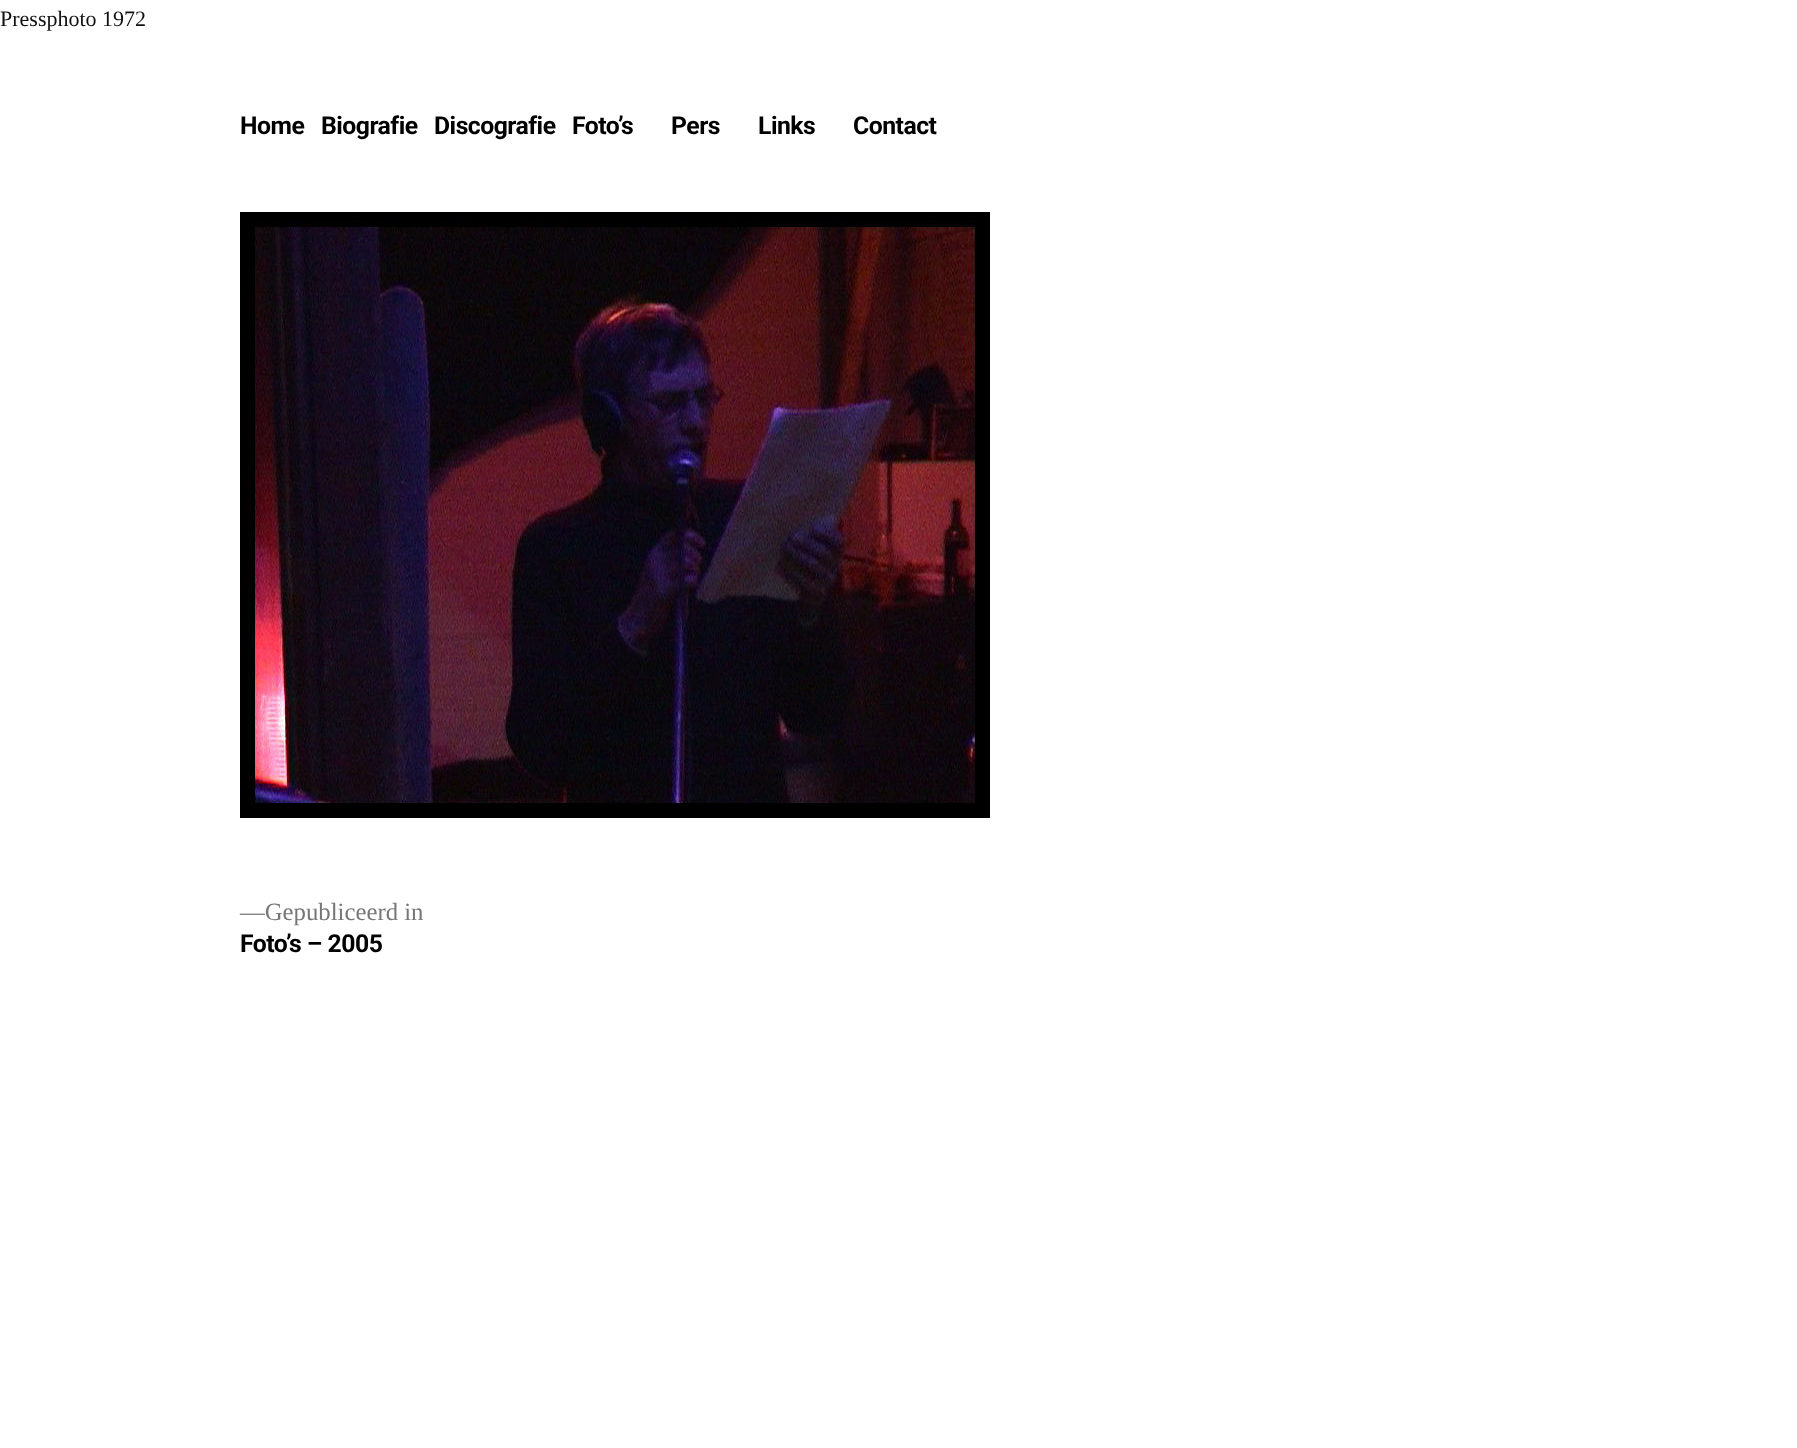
<!DOCTYPE html>
<meta charset="utf-8">
<style>body { margin: 0 } canvas { display: block }</style>
<canvas id="canvas" width="1797" height="1448"></canvas>
<script type="module">
  const canvas = document.getElementById("canvas");
  const ctx = canvas.getContext("2d");
  ctx.miterLimit = 4;
  ctx.fontKerning = "normal";
  async function loadImage(src) {
    const img = new Image();
    img.src = src;
    await img.decode();
    return img;
  }

  ctx.fillStyle = "#ffffff";
  ctx.fillRect(0, 0, 1797, 1448);
  ctx.font = "22px Liberation Serif";
  ctx.fillStyle = "#111111";
  ctx.fillText("Pressphoto 1972", 0, 26);
  ctx.letterSpacing = "-0.5px";
  ctx.font = "bold 24.75px Roboto";
  ctx.fillStyle = "#000000";
  ctx.fillText("Home", 240, 134);
  ctx.fillText("Biografie", 321, 134);
  ctx.fillText("Discografie", 434, 134);
  ctx.fillText("Foto’s", 572, 134);
  ctx.fillText("Pers", 671, 134);
  ctx.fillText("Links", 758, 134);
  ctx.fillText("Contact", 853, 134);
  ctx.drawImage(await loadImage("img1.png"), 240, 212, 750, 606);
  ctx.letterSpacing = "0px";
  ctx.font = "24.75px Liberation Serif";
  ctx.fillStyle = "#767676";
  ctx.fillText("—Gepubliceerd in", 240, 920);
  ctx.letterSpacing = "-0.5px";
  ctx.font = "bold 24.75px Roboto";
  ctx.fillStyle = "#000000";
  ctx.fillText("Foto’s – 2005", 240, 952);
</script>
